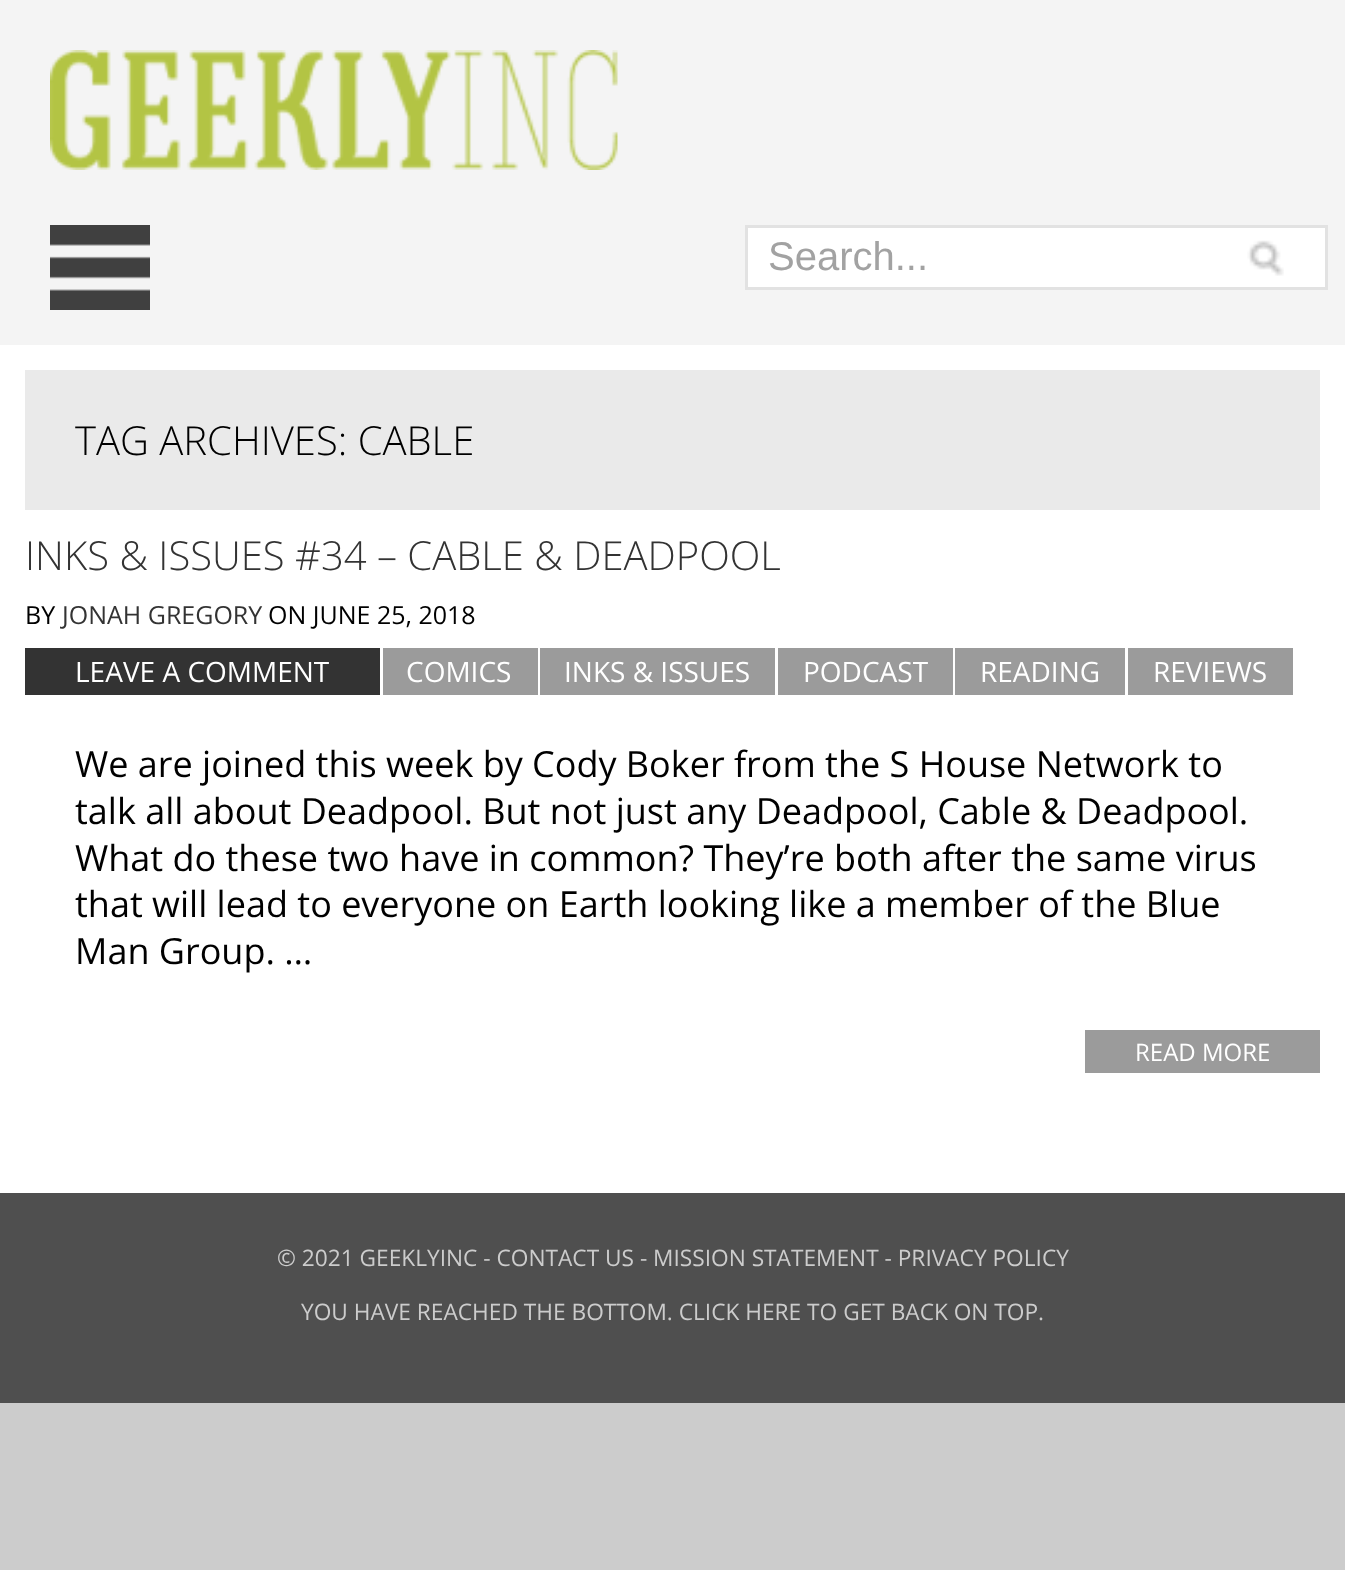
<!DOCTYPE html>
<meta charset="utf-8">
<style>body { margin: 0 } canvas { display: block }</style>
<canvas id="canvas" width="1345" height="1570"></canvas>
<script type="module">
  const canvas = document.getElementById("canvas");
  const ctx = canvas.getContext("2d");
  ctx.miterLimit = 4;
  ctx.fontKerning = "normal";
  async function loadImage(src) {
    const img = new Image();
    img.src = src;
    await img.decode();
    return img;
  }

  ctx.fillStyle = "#cccccc";
  ctx.fillRect(0, 0, 1345, 1570);
  ctx.fillStyle = "#ffffff";
  ctx.fillRect(0, 345, 1345, 848);
  ctx.fillStyle = "#f4f4f4";
  ctx.fillRect(0, 0, 1345, 345);
  ctx.drawImage(await loadImage("img1.png"), 50, 50, 568, 120);
  ctx.drawImage(await loadImage("img2.png"), 50, 225, 100, 85);
  ctx.fillStyle = "#ffffff";
  ctx.beginPath();
  ctx.rect(746.5, 226.5, 580, 62);
  ctx.fill();
  ctx.strokeStyle = "#e2e2e2";
  ctx.lineWidth = 3;
  ctx.stroke();
  ctx.font = "40px Liberation Sans";
  ctx.fillStyle = "#a2a2a2";
  ctx.fillText("Search...", 768, 270);
  ctx.drawImage(await loadImage("img3.png"), 1247, 240, 37, 36);
  ctx.fillStyle = "#eaeaea";
  ctx.fillRect(25, 370, 1295, 140);
  ctx.font = "300 40px Open Sans";
  ctx.fillStyle = "#000000";
  ctx.fillText("TAG ARCHIVES: CABLE", 75, 455);
  ctx.fillStyle = "#333333";
  ctx.fillText("INKS & ISSUES #34 – CABLE & DEADPOOL", 25, 570);
  ctx.font = "25px Open Sans";
  ctx.fillStyle = "#000000";
  ctx.fillText("BY", 25, 624);
  ctx.fillStyle = "#333333";
  ctx.fillText("JONAH GREGORY", 62, 624);
  ctx.fillStyle = "#000000";
  ctx.fillText("ON JUNE 25, 2018", 268, 624);
  ctx.fillStyle = "#333333";
  ctx.fillRect(25, 648, 355, 47);
  ctx.font = "28px Open Sans";
  ctx.fillStyle = "#ffffff";
  ctx.fillText("LEAVE A COMMENT", 75, 682);
  ctx.fillStyle = "#9b9b9b";
  ctx.fillRect(383, 648, 155, 47);
  ctx.fillStyle = "#ffffff";
  ctx.fillText("COMICS", 406, 682);
  ctx.fillStyle = "#9b9b9b";
  ctx.fillRect(540, 648, 235, 47);
  ctx.fillStyle = "#ffffff";
  ctx.fillText("INKS & ISSUES", 564, 682);
  ctx.fillStyle = "#9b9b9b";
  ctx.fillRect(778, 648, 175, 47);
  ctx.fillStyle = "#ffffff";
  ctx.fillText("PODCAST", 803, 682);
  ctx.fillStyle = "#9b9b9b";
  ctx.fillRect(955, 648, 170, 47);
  ctx.fillStyle = "#ffffff";
  ctx.fillText("READING", 980, 682);
  ctx.fillStyle = "#9b9b9b";
  ctx.fillRect(1128, 648, 165, 47);
  ctx.fillStyle = "#ffffff";
  ctx.fillText("REVIEWS", 1153, 682);
  ctx.font = "36px Open Sans";
  ctx.fillStyle = "#000000";
  ctx.fillText("We are joined this week by Cody Boker from the S House Network to", 75, 777);
  ctx.fillText("talk all about Deadpool. But not just any Deadpool, Cable & Deadpool.", 75, 824);
  ctx.fillText("What do these two have in common? They’re both after the same virus", 75, 871);
  ctx.fillText("that will lead to everyone on Earth looking like a member of the Blue", 75, 917);
  ctx.fillText("Man Group. …", 75, 964);
  ctx.fillStyle = "#9b9b9b";
  ctx.fillRect(1085, 1030, 235, 43);
  ctx.font = "24px Open Sans";
  ctx.fillStyle = "#ffffff";
  ctx.fillText("READ MORE", 1135, 1061);
  ctx.fillStyle = "#4f4f4f";
  ctx.fillRect(0, 1193, 1345, 210);
  ctx.font = "22.7px Open Sans";
  ctx.fillStyle = "#cccccc";
  ctx.fillText("© 2021 GEEKLYINC - CONTACT US - MISSION STATEMENT - PRIVACY POLICY", 277, 1266);
  ctx.fillText("YOU HAVE REACHED THE BOTTOM. CLICK HERE TO GET BACK ON TOP.", 301, 1320);
</script>
